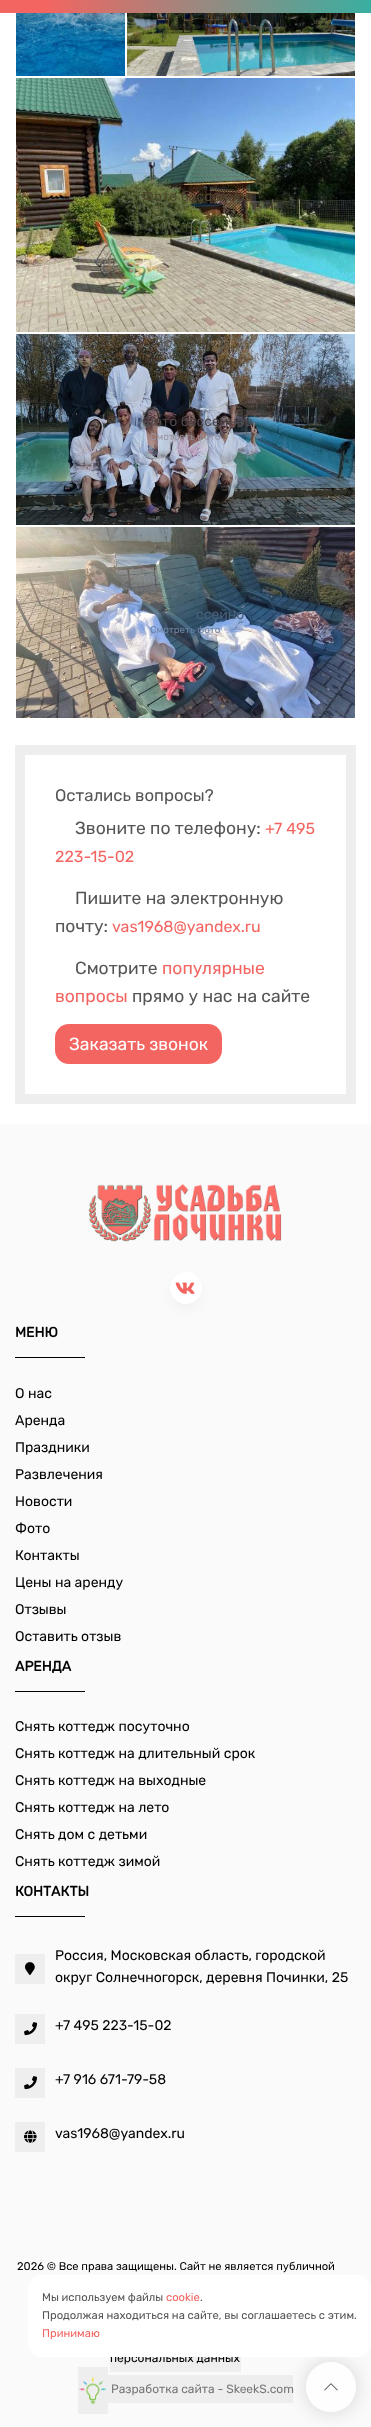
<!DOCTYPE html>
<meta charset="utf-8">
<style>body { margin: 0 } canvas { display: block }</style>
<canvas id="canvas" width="371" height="2427"></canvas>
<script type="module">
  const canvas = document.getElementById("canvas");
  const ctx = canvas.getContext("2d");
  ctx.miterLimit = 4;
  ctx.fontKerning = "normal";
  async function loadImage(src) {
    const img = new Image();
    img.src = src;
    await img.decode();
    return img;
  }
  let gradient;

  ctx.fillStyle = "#ffffff";
  ctx.fillRect(0, 0, 371, 2427);
  gradient = ctx.createLinearGradient(0, 6, 371, 6);
  gradient.addColorStop(0.12, "#f36561");
  gradient.addColorStop(1, "#39afa1");
  ctx.fillStyle = gradient;
  ctx.fillRect(0, 0, 371, 13);
  ctx.drawImage(await loadImage("img1.png"), 16, 13, 109, 63);
  ctx.drawImage(await loadImage("img2.png"), 127, 13, 228, 63);
  ctx.drawImage(await loadImage("img3.png"), 16, 78, 339, 254);
  ctx.font = "300 14px Rubik";
  ctx.fillStyle = "#4e462d";
  ctx.fillText("Фото бассейнов", 142, 201);
  ctx.drawImage(await loadImage("img4.png"), 16, 334, 339, 191);
  ctx.fillStyle = "#4d474c";
  ctx.fillText("Фото бассейнов", 142, 426);
  ctx.font = "300 9.75px Rubik";
  ctx.fillStyle = "#9a929e";
  ctx.fillText("Смотреть фото", 150, 440);
  ctx.drawImage(await loadImage("img5.png"), 16, 527, 339, 191);
  ctx.font = "300 14px Rubik";
  ctx.fillStyle = "#4b637a";
  ctx.fillText("ссейно", 196, 619);
  ctx.font = "300 9.75px Rubik";
  ctx.fillStyle = "#6f84a2";
  ctx.fillText("Смотреть фото", 150, 633);
  ctx.strokeStyle = "#eeeeee";
  ctx.lineWidth = 10;
  ctx.strokeRect(20, 750, 331, 349);
  ctx.font = "300 16.75px Rubik";
  ctx.fillStyle = "#555555";
  ctx.fillText("Остались вопросы?", 55, 801);
  ctx.font = "300 17.5px Rubik";
  ctx.fillText("Звоните по телефону:", 75, 834);
  ctx.font = "300 16px Rubik";
  ctx.fillStyle = "#f36561";
  ctx.fillText("+7 495", 265, 834);
  ctx.fillText("223-15-02", 55, 862);
  ctx.font = "300 17.5px Rubik";
  ctx.fillStyle = "#555555";
  ctx.fillText("Пишите на электронную", 75, 904);
  ctx.fillText("почту:", 55, 932);
  ctx.font = "300 16px Rubik";
  ctx.fillStyle = "#f36561";
  ctx.fillText("vas1968@yandex.ru", 112, 932);
  ctx.font = "300 17.5px Rubik";
  ctx.fillStyle = "#555555";
  ctx.fillText("Смотрите", 75, 974);
  ctx.fillStyle = "#f36561";
  ctx.fillText("популярные", 162, 974);
  ctx.fillText("вопросы", 55, 1002);
  ctx.fillStyle = "#555555";
  ctx.fillText("прямо у нас на сайте", 132, 1002);
  ctx.fillStyle = "#f36561";
  ctx.beginPath();
  ctx.roundRect(55, 1024, 167, 40, 14);
  ctx.fill();
  ctx.fillStyle = "#ffffff";
  ctx.fillText("Заказать звонок", 69, 1050);
  ctx.fillStyle = "#fafafa";
  ctx.fillRect(0, 1124, 371, 1303);
  ctx.drawImage(await loadImage("img6.png"), 88, 1184, 194, 58);
  ctx.fillStyle = "rgba(0, 0, 0, 0.1)";
  ctx.filter = "blur(7.5px)";
  ctx.beginPath();
  ctx.roundRect(176, 1284, 20, 20, 10);
  ctx.fill();
  ctx.filter = "none";
  ctx.fillStyle = "#ffffff";
  ctx.beginPath();
  ctx.arc(186, 1288, 16, 0, Math.PI * 2);
  ctx.fill();
  ctx.drawImage(await loadImage("img7.png"), 175, 1282, 20, 12);
  ctx.font = "bold 14px Rubik";
  ctx.fillStyle = "#000000";
  ctx.fillText("МЕНЮ", 15, 1337);
  ctx.fillRect(15, 1357, 70, 1);
  ctx.font = "300 14px Rubik";
  ctx.fillText("О нас", 15, 1398);
  ctx.fillText("Аренда", 15, 1425);
  ctx.fillText("Праздники", 15, 1452);
  ctx.fillText("Развлечения", 15, 1479);
  ctx.fillText("Новости", 15, 1506);
  ctx.fillText("Фото", 15, 1533);
  ctx.fillText("Контакты", 15, 1560);
  ctx.fillText("Цены на аренду", 15, 1587);
  ctx.fillText("Отзывы", 15, 1614);
  ctx.fillText("Оставить отзыв", 15, 1641);
  ctx.font = "bold 14px Rubik";
  ctx.fillText("АРЕНДА", 15, 1671);
  ctx.fillRect(15, 1691, 70, 1);
  ctx.font = "300 14px Rubik";
  ctx.fillText("Снять коттедж посуточно", 15, 1731);
  ctx.fillText("Снять коттедж на длительный срок", 15, 1758);
  ctx.fillText("Снять коттедж на выходные", 15, 1785);
  ctx.fillText("Снять коттедж на лето", 15, 1812);
  ctx.fillText("Снять дом с детьми", 15, 1839);
  ctx.fillText("Снять коттедж зимой", 15, 1866);
  ctx.font = "bold 14px Rubik";
  ctx.fillText("КОНТАКТЫ", 15, 1896);
  ctx.fillRect(15, 1916, 70, 1);
  ctx.fillStyle = "#eeeeee";
  ctx.fillRect(15, 1954, 30, 30);
  ctx.drawImage(await loadImage("img8.png"), 25, 1962, 10, 14);
  ctx.font = "300 14px Rubik";
  ctx.fillStyle = "#000000";
  ctx.fillText("Россия, Московская область, городской", 55, 1960);
  ctx.fillText("округ Солнечногорск, деревня Починки, 25", 55, 1982);
  ctx.fillStyle = "#eeeeee";
  ctx.fillRect(15, 2014, 30, 30);
  ctx.drawImage(await loadImage("img9.png"), 24, 2022, 13, 14);
  ctx.fillStyle = "#000000";
  ctx.fillText("+7 495 223-15-02", 55, 2030);
  ctx.fillStyle = "#eeeeee";
  ctx.fillRect(15, 2068, 30, 30);
  ctx.drawImage(await loadImage("img9.png"), 24, 2076, 13, 14);
  ctx.fillStyle = "#000000";
  ctx.fillText("+7 916 671-79-58", 55, 2084);
  ctx.fillStyle = "#eeeeee";
  ctx.fillRect(15, 2122, 30, 30);
  ctx.drawImage(await loadImage("img10.png"), 24, 2130, 13, 13);
  ctx.fillStyle = "#000000";
  ctx.fillText("vas1968@yandex.ru", 55, 2138);
  ctx.font = "300 11.2px Rubik";
  ctx.fillText("2026 © Все права защищены. Сайт не является публичной", 17, 2270);
  ctx.fillStyle = "#eeeeee";
  ctx.fillRect(110, 2357, 131, 15);
  ctx.font = "300 12px Rubik";
  ctx.fillStyle = "#000000";
  ctx.fillText("персональных данных", 110, 2362);
  ctx.fillStyle = "#eeeeee";
  ctx.fillRect(78, 2367, 30, 47);
  ctx.drawImage(await loadImage("img11.png"), 79, 2376, 28, 29);
  ctx.fillRect(108, 2375, 185, 28);
  ctx.fillStyle = "#777777";
  ctx.fillText("Разработка сайта - SkeekS.com", 111, 2393);
  ctx.save();
  ctx.beginPath();
  ctx.moveTo(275, 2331);
  ctx.lineTo(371, 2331);
  ctx.lineTo(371, 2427);
  ctx.lineTo(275, 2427);
  ctx.closePath();
  ctx.moveTo(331, 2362);
  ctx.bezierCurveTo(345, 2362, 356, 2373, 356, 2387);
  ctx.bezierCurveTo(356, 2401, 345, 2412, 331, 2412);
  ctx.bezierCurveTo(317, 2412, 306, 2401, 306, 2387);
  ctx.bezierCurveTo(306, 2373, 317, 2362, 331, 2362);
  ctx.closePath();
  ctx.clip("evenodd");
  ctx.fillStyle = "rgba(0, 0, 0, 0.15)";
  ctx.filter = "blur(10px)";
  ctx.beginPath();
  ctx.roundRect(306, 2362, 50, 50, 25);
  ctx.fill();
  ctx.filter = "none";
  ctx.restore();
  ctx.fillStyle = "#ffffff";
  ctx.beginPath();
  ctx.roundRect(28, 2275, 343, 82, 14);
  ctx.fill();
  ctx.font = "300 11.2px Rubik";
  ctx.fillStyle = "#555555";
  ctx.fillText("Мы используем файлы", 42, 2301);
  ctx.fillStyle = "#f36561";
  ctx.fillText("cookie", 166, 2301);
  ctx.fillStyle = "#555555";
  ctx.fillText(".", 200, 2301);
  ctx.fillText("Продолжая находиться на сайте, вы соглашаетесь с этим.", 42, 2319);
  ctx.fillStyle = "#f36561";
  ctx.fillText("Принимаю", 42, 2337);
  ctx.fillStyle = "rgba(255, 255, 255, 0.7)";
  ctx.beginPath();
  ctx.arc(331, 2387, 25, 0, Math.PI * 2);
  ctx.fill();
  ctx.drawImage(await loadImage("img12.png"), 324, 2383, 14, 8);
</script>
